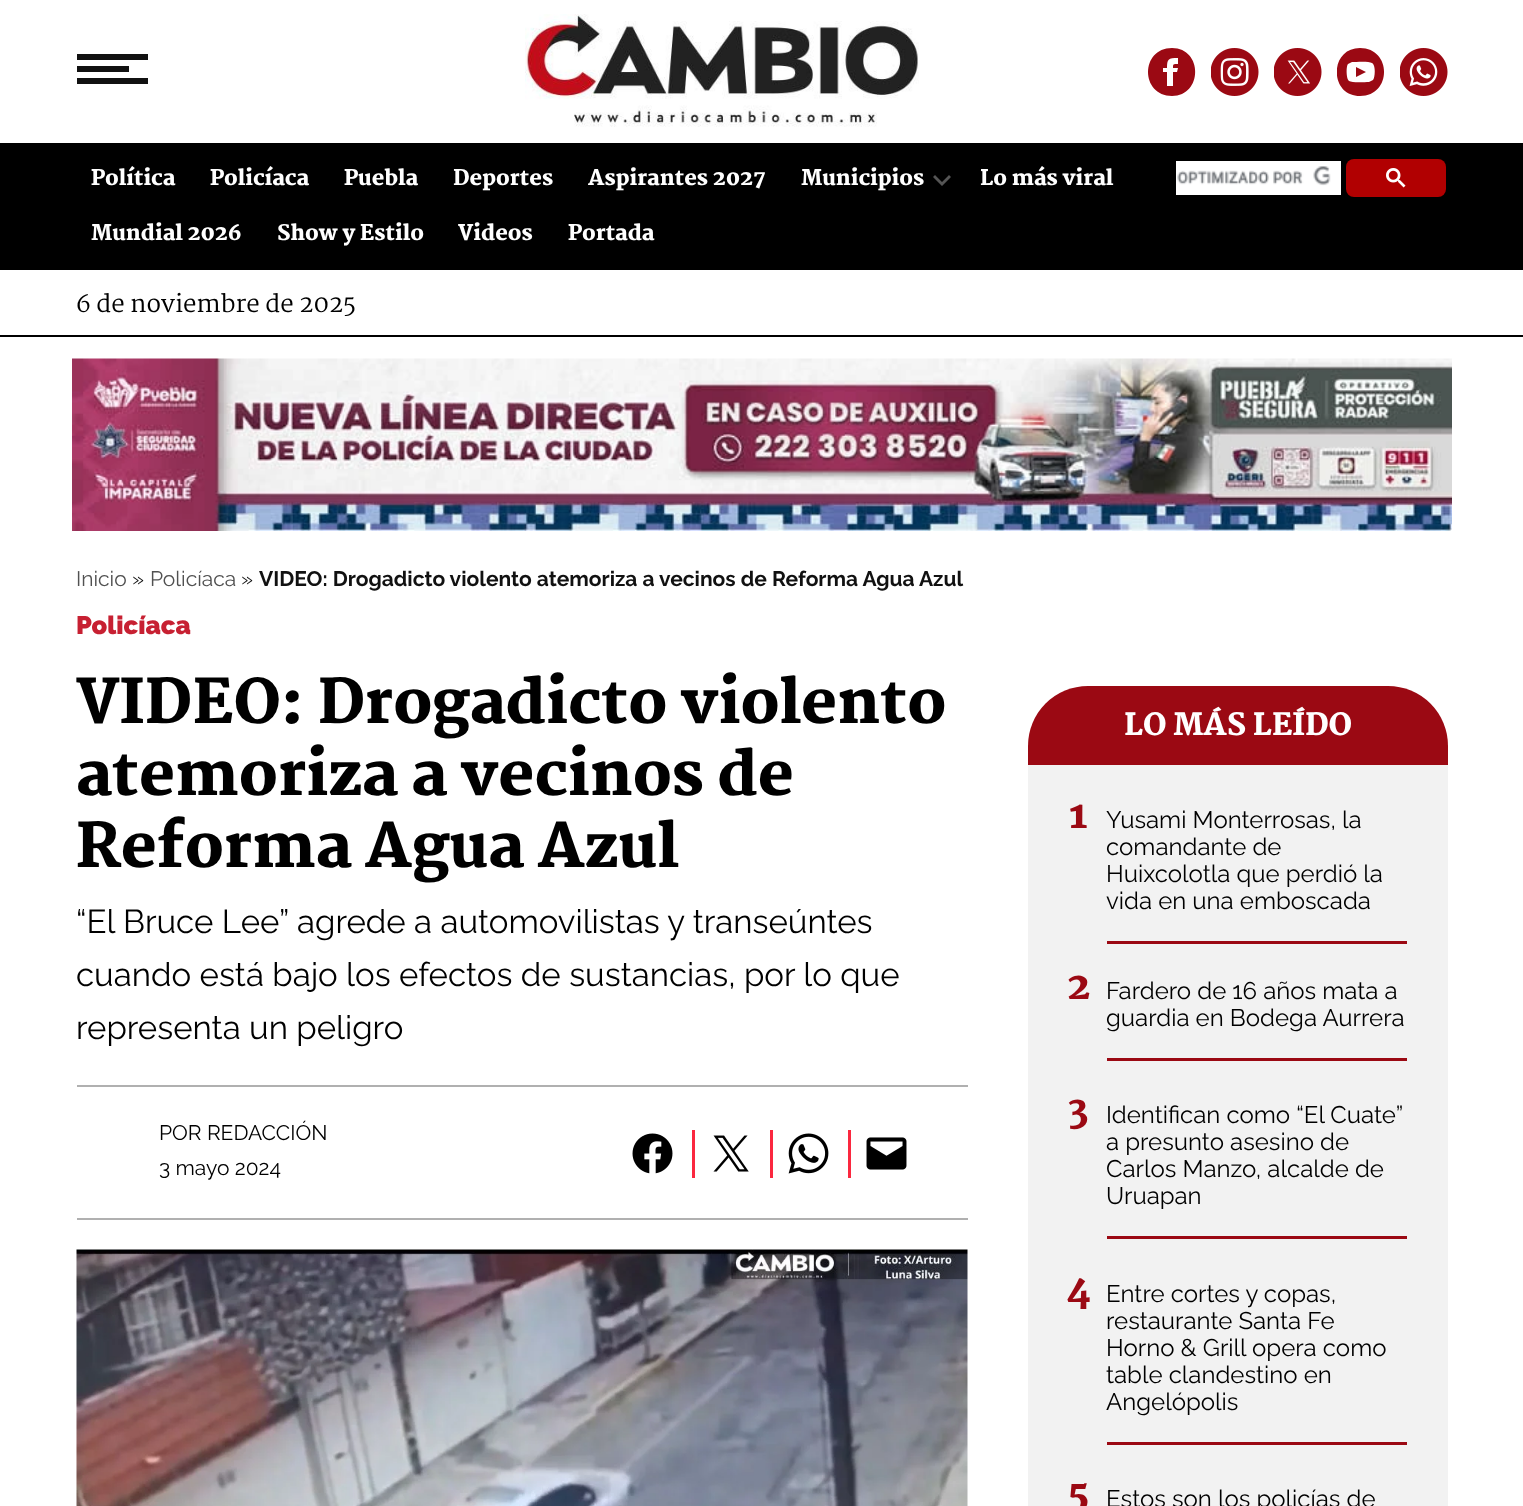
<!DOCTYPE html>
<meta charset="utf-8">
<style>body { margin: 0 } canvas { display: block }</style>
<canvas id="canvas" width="1523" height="1506"></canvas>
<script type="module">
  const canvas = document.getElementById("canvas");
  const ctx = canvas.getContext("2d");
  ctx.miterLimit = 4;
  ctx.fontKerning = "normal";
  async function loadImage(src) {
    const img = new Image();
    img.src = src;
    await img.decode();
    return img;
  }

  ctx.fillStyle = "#ffffff";
  ctx.fillRect(0, 0, 1523, 1506);
  ctx.save();
  ctx.beginPath();
  ctx.rect(77, 54, 72, 72);
  ctx.clip();
  ctx.fillStyle = "#111111";
  ctx.beginPath();
  ctx.moveTo(148, 84);
  ctx.lineTo(76, 84);
  ctx.lineTo(76, 78);
  ctx.lineTo(148, 78);
  ctx.closePath();
  ctx.moveTo(129, 72);
  ctx.lineTo(76, 72);
  ctx.lineTo(76, 66);
  ctx.lineTo(129, 66);
  ctx.closePath();
  ctx.moveTo(148, 54);
  ctx.lineTo(148, 60);
  ctx.lineTo(76, 60);
  ctx.lineTo(76, 54);
  ctx.closePath();
  ctx.fill();
  ctx.restore();
  ctx.drawImage(await loadImage("img1.png"), 525, 14, 394, 113);
  ctx.fillStyle = "#9b0913";
  ctx.beginPath();
  ctx.moveTo(1172, 48);
  ctx.bezierCurveTo(1140, 48, 1140, 96, 1172, 96);
  ctx.bezierCurveTo(1203, 96, 1203, 48, 1172, 48);
  ctx.closePath();
  ctx.moveTo(1178, 64);
  ctx.bezierCurveTo(1173, 64, 1173, 64, 1173, 68);
  ctx.lineTo(1178, 68);
  ctx.lineTo(1177, 72);
  ctx.lineTo(1173, 72);
  ctx.lineTo(1173, 86);
  ctx.lineTo(1167, 86);
  ctx.lineTo(1167, 72);
  ctx.lineTo(1163, 72);
  ctx.lineTo(1163, 68);
  ctx.lineTo(1167, 68);
  ctx.bezierCurveTo(1167, 59, 1168, 58, 1178, 58);
  ctx.closePath();
  ctx.fill();
  ctx.drawImage(await loadImage("img2.png"), 1211, 48, 48, 48);
  ctx.drawImage(await loadImage("img3.png"), 1274, 48, 48, 48);
  ctx.save();
  ctx.beginPath();
  ctx.rect(1337, 48, 48, 48);
  ctx.clip();
  ctx.beginPath();
  ctx.moveTo(1360, 48);
  ctx.bezierCurveTo(1329, 48, 1329, 96, 1360, 96);
  ctx.bezierCurveTo(1392, 96, 1392, 48, 1360, 48);
  ctx.closePath();
  ctx.moveTo(1369, 82);
  ctx.bezierCurveTo(1365, 82, 1352, 83, 1349, 81);
  ctx.bezierCurveTo(1346, 79, 1346, 66, 1348, 64);
  ctx.lineTo(1352, 62);
  ctx.bezierCurveTo(1356, 62, 1369, 61, 1372, 63);
  ctx.bezierCurveTo(1376, 65, 1375, 78, 1373, 80);
  ctx.closePath();
  ctx.moveTo(1356, 67);
  ctx.lineTo(1366, 72);
  ctx.lineTo(1356, 77);
  ctx.closePath();
  ctx.fill();
  ctx.restore();
  ctx.drawImage(await loadImage("img4.png"), 1400, 48, 48, 48);
  ctx.fillStyle = "#000000";
  ctx.fillRect(0, 143, 1523, 127);
  ctx.font = "900 21px Martel";
  ctx.fillStyle = "#ffffff";
  ctx.fillText("Política", 91, 185);
  ctx.fillText("Policíaca", 210, 185);
  ctx.fillText("Puebla", 344, 185);
  ctx.fillText("Deportes", 453, 185);
  ctx.fillText("Aspirantes 2027", 588, 185);
  ctx.fillText("Municipios", 801, 185);
  ctx.fillStyle = "#555555";
  ctx.beginPath();
  ctx.moveTo(935, 175);
  ctx.lineTo(942, 182);
  ctx.lineTo(949, 175);
  ctx.lineTo(951, 177);
  ctx.lineTo(942, 186);
  ctx.lineTo(933, 177);
  ctx.closePath();
  ctx.fill();
  ctx.fillStyle = "#ffffff";
  ctx.fillText("Lo más viral", 980, 185);
  ctx.fillText("Mundial 2026", 91, 240);
  ctx.fillText("Show y Estilo", 277, 240);
  ctx.fillText("Videos", 458, 240);
  ctx.fillText("Portada", 568, 240);
  ctx.fillRect(1176, 161, 165, 34);
  ctx.drawImage(await loadImage("img5.png"), 1177, 166, 154, 20);
  ctx.fillStyle = "#b10001";
  ctx.beginPath();
  ctx.roundRect(1346, 159, 100, 38, 8);
  ctx.fill();
  ctx.drawImage(await loadImage("img6.png"), 1386, 168, 20, 20);
  ctx.fillStyle = "#000000";
  ctx.fillRect(0, 335, 1523, 2);
  ctx.font = "24px Martel";
  ctx.fillText("6 de noviembre de 2025", 76, 312);
  ctx.drawImage(await loadImage("img7.png"), 72, 358, 1380, 173);
  ctx.font = "21px Raleway";
  ctx.fillStyle = "#515151";
  ctx.fillText("Inicio", 76, 586);
  ctx.fillStyle = "#111111";
  ctx.fillText("»", 132, 586);
  ctx.fillStyle = "#515151";
  ctx.fillText("Policíaca", 150, 586);
  ctx.fillStyle = "#111111";
  ctx.fillText("»", 241, 586);
  ctx.font = "bold 21px Raleway";
  ctx.fillText("VIDEO: Drogadicto violento atemoriza a vecinos de Reforma Agua Azul", 259, 586);
  ctx.font = "900 25.5px Raleway";
  ctx.fillStyle = "#c72032";
  ctx.fillText("Policíaca", 76, 634);
  ctx.font = "900 60px Martel";
  ctx.fillStyle = "#000000";
  ctx.fillText("VIDEO: Drogadicto violento", 76, 723);
  ctx.fillText("atemoriza a vecinos de", 76, 795);
  ctx.fillText("Reforma Agua Azul", 76, 867);
  ctx.font = "33px Raleway";
  ctx.fillText("“El Bruce Lee” agrede a automovilistas y transeúntes", 76, 933);
  ctx.fillText("cuando está bajo los efectos de sustancias, por lo que", 76, 986);
  ctx.fillText("representa un peligro", 76, 1039);
  ctx.fillStyle = "#b0b0b0";
  ctx.fillRect(77, 1085, 891, 2);
  ctx.fillRect(77, 1218, 891, 2);
  ctx.font = "21px Raleway";
  ctx.fillStyle = "#000000";
  ctx.fillText("POR REDACCIÓN", 159, 1140);
  ctx.fillText("3 mayo 2024", 159, 1175);
  ctx.fillStyle = "#fb283f";
  ctx.fillRect(692, 1130, 3, 48);
  ctx.drawImage(await loadImage("img8.png"), 632, 1133, 41, 41);
  ctx.fillRect(770, 1130, 3, 48);
  ctx.drawImage(await loadImage("img9.png"), 713, 1135, 36, 37);
  ctx.fillRect(848, 1130, 3, 48);
  ctx.drawImage(await loadImage("img10.png"), 788, 1133, 41, 41);
  ctx.drawImage(await loadImage("img11.png"), 866, 1137, 41, 33);
  ctx.drawImage(await loadImage("img12.png"), 76, 1249, 892, 257);
  ctx.fillStyle = "#9b0913";
  ctx.beginPath();
  ctx.roundRect(1028, 686, 420, 79, [60, 60, 0, 0]);
  ctx.fill();
  ctx.font = "900 30px Martel";
  ctx.fillStyle = "#ffffff";
  ctx.fillText("LO MÁS LEÍDO", 1124, 735);
  ctx.fillStyle = "#f2f2f2";
  ctx.fillRect(1028, 765, 420, 741);
  ctx.font = "900 38px Martel";
  ctx.fillStyle = "#9b0913";
  ctx.fillText("1", 1069, 828);
  ctx.fillRect(1107, 941, 300, 3);
  ctx.font = "24px Raleway";
  ctx.fillStyle = "#000000";
  ctx.fillText("Yusami Monterrosas, la", 1106, 828);
  ctx.fillText("comandante de", 1106, 855);
  ctx.fillText("Huixcolotla que perdió la", 1106, 882);
  ctx.fillText("vida en una emboscada", 1106, 909);
  ctx.font = "900 38px Martel";
  ctx.fillStyle = "#9b0913";
  ctx.fillText("2", 1067, 999);
  ctx.fillRect(1107, 1058, 300, 3);
  ctx.font = "24px Raleway";
  ctx.fillStyle = "#000000";
  ctx.fillText("Fardero de 16 años mata a", 1106, 999);
  ctx.fillText("guardia en Bodega Aurrera", 1106, 1026);
  ctx.font = "900 38px Martel";
  ctx.fillStyle = "#9b0913";
  ctx.fillText("3", 1068, 1123);
  ctx.fillRect(1107, 1236, 300, 3);
  ctx.font = "24px Raleway";
  ctx.fillStyle = "#000000";
  ctx.fillText("Identifican como “El Cuate”", 1106, 1123);
  ctx.fillText("a presunto asesino de", 1106, 1150);
  ctx.fillText("Carlos Manzo, alcalde de", 1106, 1177);
  ctx.fillText("Uruapan", 1106, 1204);
  ctx.font = "900 38px Martel";
  ctx.fillStyle = "#9b0913";
  ctx.fillText("4", 1066, 1302);
  ctx.fillRect(1107, 1442, 300, 3);
  ctx.font = "24px Raleway";
  ctx.fillStyle = "#000000";
  ctx.fillText("Entre cortes y copas,", 1106, 1302);
  ctx.fillText("restaurante Santa Fe", 1106, 1329);
  ctx.fillText("Horno & Grill opera como", 1106, 1356);
  ctx.fillText("table clandestino en", 1106, 1383);
  ctx.fillText("Angelópolis", 1106, 1410);
  ctx.font = "900 38px Martel";
  ctx.fillStyle = "#9b0913";
  ctx.fillText("5", 1068, 1507);
  ctx.font = "24px Raleway";
  ctx.fillStyle = "#000000";
  ctx.fillText("Estos son los policías de", 1106, 1507);
</script>
